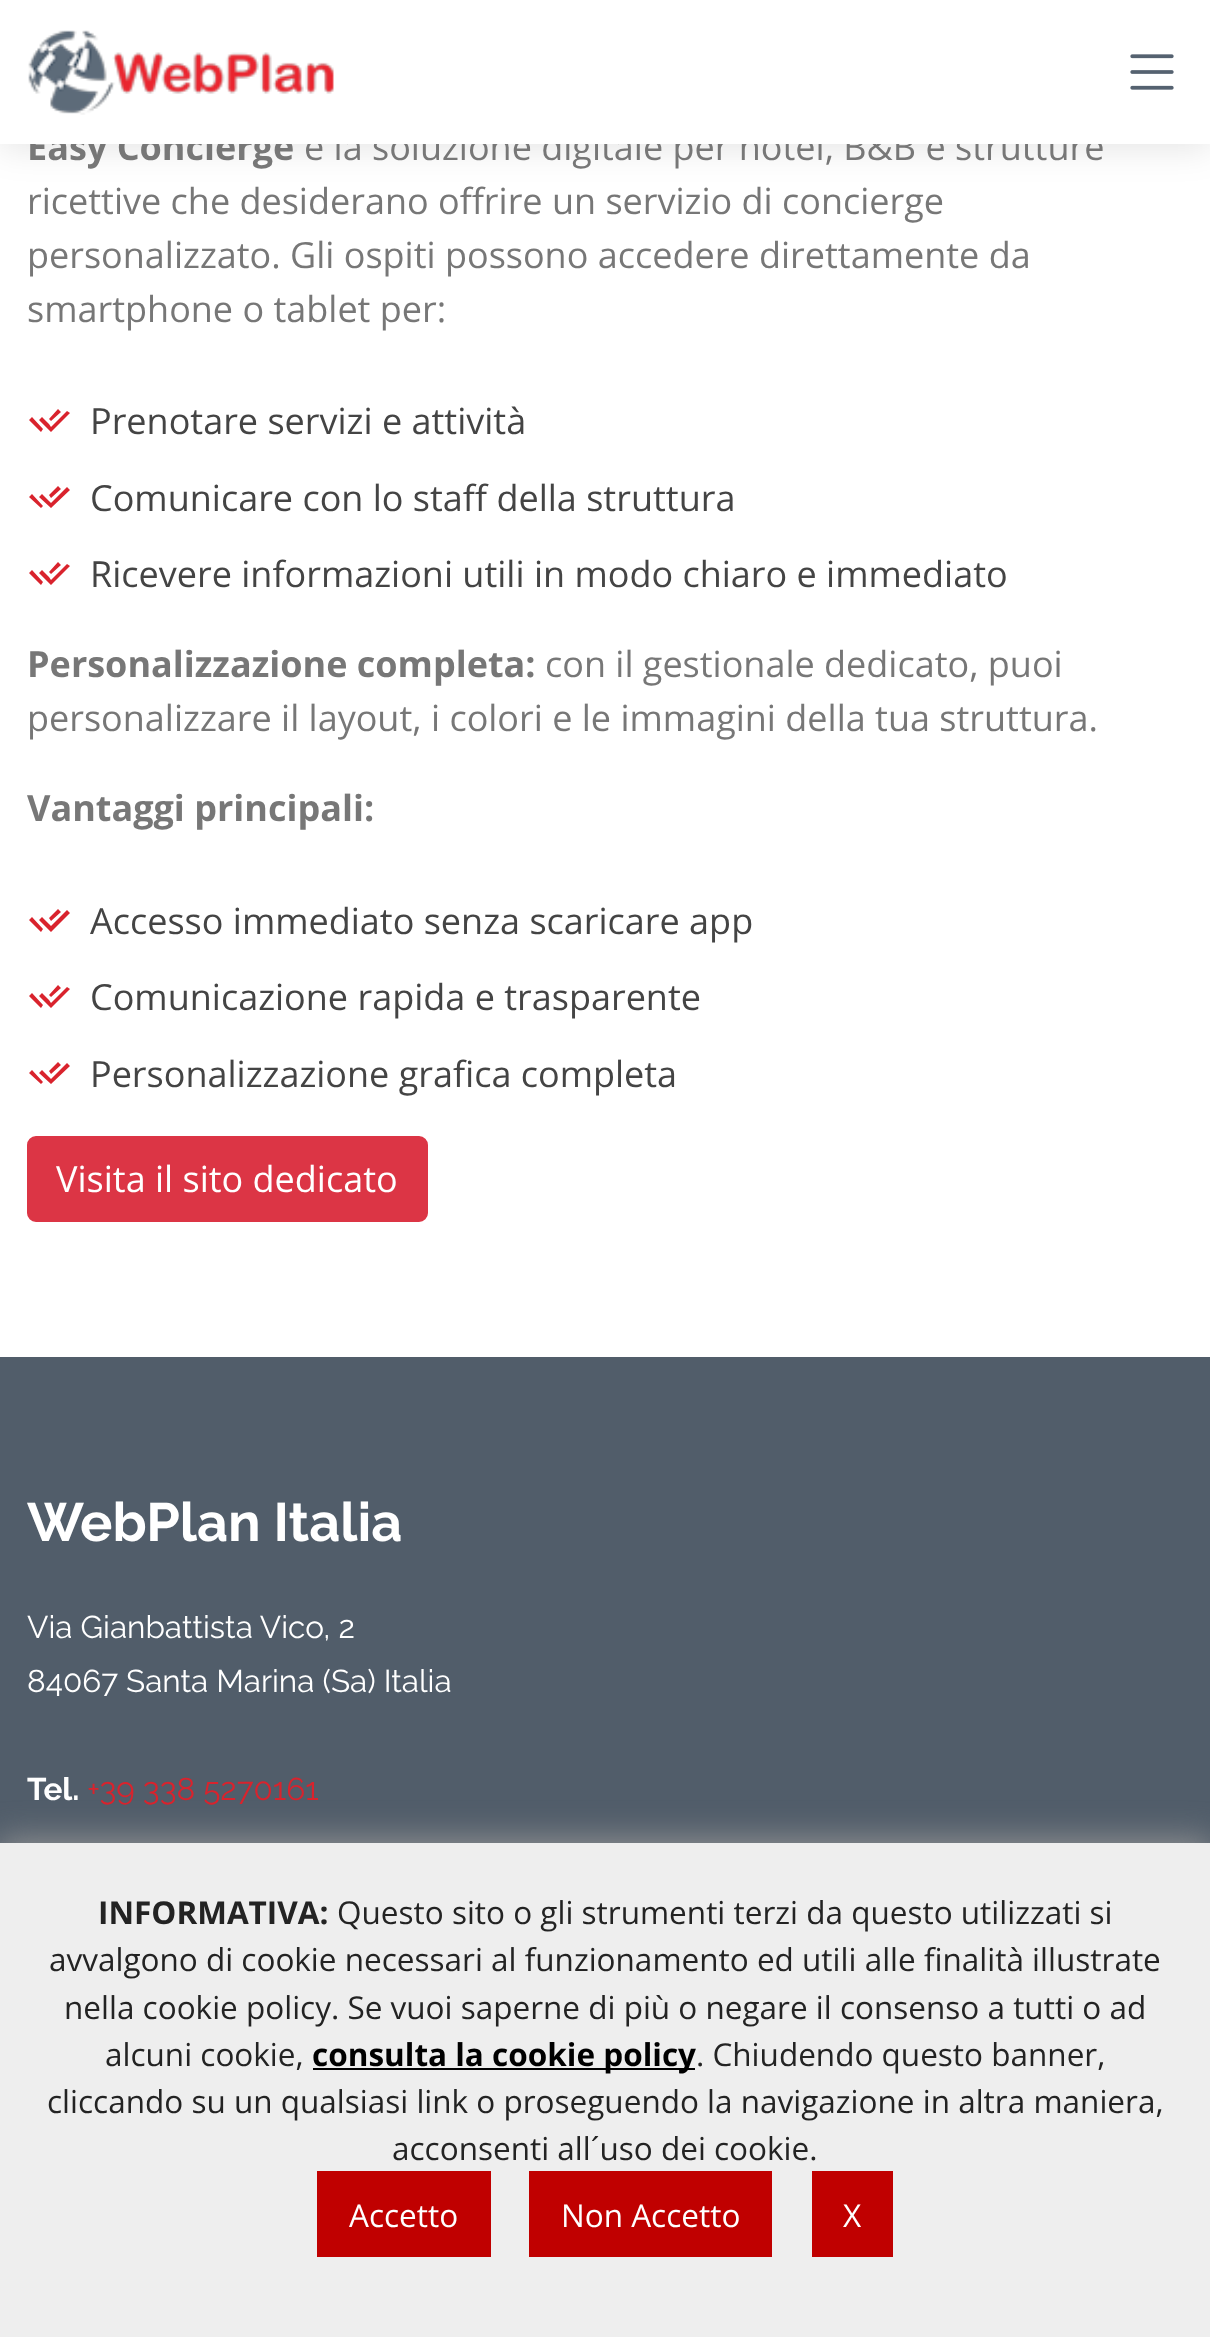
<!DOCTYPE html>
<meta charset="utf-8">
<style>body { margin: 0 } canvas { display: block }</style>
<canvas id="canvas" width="1210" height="2337"></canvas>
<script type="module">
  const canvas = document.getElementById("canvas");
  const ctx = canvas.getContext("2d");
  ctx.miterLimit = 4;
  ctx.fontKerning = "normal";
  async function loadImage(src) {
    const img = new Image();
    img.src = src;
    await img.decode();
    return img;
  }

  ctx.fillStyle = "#ffffff";
  ctx.fillRect(0, 0, 1210, 2337);
  ctx.fillStyle = "rgba(0, 0, 0, 0.1)";
  ctx.filter = "blur(17px)";
  ctx.beginPath();
  ctx.rect(0, 5, 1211, 144);
  ctx.fill();
  ctx.filter = "none";
  ctx.font = "bold 36px Open Sans";
  ctx.fillStyle = "#777777";
  ctx.fillText("Easy Concierge", 27, 160);
  ctx.font = "36px Open Sans";
  ctx.fillText("è la soluzione digitale per hotel, B&B e strutture", 304, 160);
  ctx.fillStyle = "#ffffff";
  ctx.fillRect(0, 0, 1210, 144);
  ctx.drawImage(await loadImage("img1.png"), 28, 30, 306, 85);
  ctx.drawImage(await loadImage("img2.png"), 1130, 54, 44, 36);
  ctx.fillStyle = "#777777";
  ctx.fillText("ricettive che desiderano offrire un servizio di concierge", 27, 214);
  ctx.fillText("personalizzato. Gli ospiti possono accedere direttamente da", 27, 268);
  ctx.fillText("smartphone o tablet per:", 27, 322);
  ctx.fillStyle = "#d9232d";
  ctx.beginPath();
  ctx.moveTo(49, 424);
  ctx.lineTo(51, 427);
  ctx.lineTo(67, 411);
  ctx.lineTo(70, 413);
  ctx.lineTo(51, 432);
  ctx.lineTo(39, 420);
  ctx.lineTo(42, 417);
  ctx.closePath();
  ctx.moveTo(49, 419);
  ctx.lineTo(58, 409);
  ctx.lineTo(61, 412);
  ctx.lineTo(51, 421);
  ctx.closePath();
  ctx.moveTo(43, 429);
  ctx.lineTo(41, 432);
  ctx.lineTo(29, 420);
  ctx.lineTo(32, 417);
  ctx.closePath();
  ctx.fill();
  ctx.fillStyle = "#444444";
  ctx.fillText("Prenotare servizi e attività", 90, 434);
  ctx.fillStyle = "#d9232d";
  ctx.beginPath();
  ctx.moveTo(49, 501);
  ctx.lineTo(51, 503);
  ctx.lineTo(67, 487);
  ctx.lineTo(70, 490);
  ctx.lineTo(51, 508);
  ctx.lineTo(39, 497);
  ctx.lineTo(42, 494);
  ctx.closePath();
  ctx.moveTo(49, 495);
  ctx.lineTo(58, 486);
  ctx.lineTo(61, 489);
  ctx.lineTo(51, 498);
  ctx.closePath();
  ctx.moveTo(43, 506);
  ctx.lineTo(41, 508);
  ctx.lineTo(29, 497);
  ctx.lineTo(32, 494);
  ctx.closePath();
  ctx.fill();
  ctx.fillStyle = "#444444";
  ctx.fillText("Comunicare con lo staff della struttura", 90, 511);
  ctx.fillStyle = "#d9232d";
  ctx.beginPath();
  ctx.moveTo(49, 577);
  ctx.lineTo(51, 580);
  ctx.lineTo(67, 564);
  ctx.lineTo(70, 566);
  ctx.lineTo(51, 585);
  ctx.lineTo(39, 573);
  ctx.lineTo(42, 570);
  ctx.closePath();
  ctx.moveTo(49, 572);
  ctx.lineTo(58, 562);
  ctx.lineTo(61, 565);
  ctx.lineTo(51, 574);
  ctx.closePath();
  ctx.moveTo(43, 582);
  ctx.lineTo(41, 585);
  ctx.lineTo(29, 573);
  ctx.lineTo(32, 570);
  ctx.closePath();
  ctx.fill();
  ctx.fillStyle = "#444444";
  ctx.fillText("Ricevere informazioni utili in modo chiaro e immediato", 90, 587);
  ctx.font = "bold 36px Open Sans";
  ctx.fillStyle = "#777777";
  ctx.fillText("Personalizzazione completa:", 27, 677);
  ctx.font = "36px Open Sans";
  ctx.fillText("con il gestionale dedicato, puoi", 545, 677);
  ctx.fillText("personalizzare il layout, i colori e le immagini della tua struttura.", 27, 731);
  ctx.font = "bold 36px Open Sans";
  ctx.fillText("Vantaggi principali:", 27, 821);
  ctx.fillStyle = "#d9232d";
  ctx.beginPath();
  ctx.moveTo(49, 924);
  ctx.lineTo(51, 926);
  ctx.lineTo(67, 910);
  ctx.lineTo(70, 913);
  ctx.lineTo(51, 932);
  ctx.lineTo(39, 920);
  ctx.lineTo(42, 917);
  ctx.closePath();
  ctx.moveTo(49, 918);
  ctx.lineTo(58, 909);
  ctx.lineTo(61, 912);
  ctx.lineTo(51, 921);
  ctx.closePath();
  ctx.moveTo(43, 929);
  ctx.lineTo(41, 932);
  ctx.lineTo(29, 920);
  ctx.lineTo(32, 917);
  ctx.closePath();
  ctx.fill();
  ctx.font = "36px Open Sans";
  ctx.fillStyle = "#444444";
  ctx.fillText("Accesso immediato senza scaricare app", 90, 934);
  ctx.fillStyle = "#d9232d";
  ctx.beginPath();
  ctx.moveTo(49, 1000);
  ctx.lineTo(51, 1003);
  ctx.lineTo(67, 987);
  ctx.lineTo(70, 989);
  ctx.lineTo(51, 1008);
  ctx.lineTo(39, 996);
  ctx.lineTo(42, 993);
  ctx.closePath();
  ctx.moveTo(49, 995);
  ctx.lineTo(58, 985);
  ctx.lineTo(61, 988);
  ctx.lineTo(51, 997);
  ctx.closePath();
  ctx.moveTo(43, 1005);
  ctx.lineTo(41, 1008);
  ctx.lineTo(29, 996);
  ctx.lineTo(32, 993);
  ctx.closePath();
  ctx.fill();
  ctx.fillStyle = "#444444";
  ctx.fillText("Comunicazione rapida e trasparente", 90, 1010);
  ctx.fillStyle = "#d9232d";
  ctx.beginPath();
  ctx.moveTo(49, 1077);
  ctx.lineTo(51, 1079);
  ctx.lineTo(67, 1063);
  ctx.lineTo(70, 1066);
  ctx.lineTo(51, 1084);
  ctx.lineTo(39, 1073);
  ctx.lineTo(42, 1070);
  ctx.closePath();
  ctx.moveTo(49, 1071);
  ctx.lineTo(58, 1062);
  ctx.lineTo(61, 1065);
  ctx.lineTo(51, 1074);
  ctx.closePath();
  ctx.moveTo(43, 1082);
  ctx.lineTo(41, 1084);
  ctx.lineTo(29, 1073);
  ctx.lineTo(32, 1070);
  ctx.closePath();
  ctx.fill();
  ctx.fillStyle = "#444444";
  ctx.fillText("Personalizzazione grafica completa", 90, 1087);
  ctx.fillStyle = "#dc3545";
  ctx.beginPath();
  ctx.roundRect(28, 1137, 399, 84, 8);
  ctx.fill();
  ctx.strokeStyle = "#dc3545";
  ctx.lineWidth = 2;
  ctx.stroke();
  ctx.fillStyle = "#ffffff";
  ctx.fillText("Visita il sito dedicato", 56, 1192);
  ctx.fillStyle = "#515d6a";
  ctx.fillRect(0, 1357, 1210, 486);
  ctx.font = "bold 54px Raleway";
  ctx.fillStyle = "#ffffff";
  ctx.fillText("WebPlan Italia", 27, 1541);
  ctx.font = "31.5px Raleway";
  ctx.fillText("Via Gianbattista Vico, 2", 27, 1638);
  ctx.fillText("84067 Santa Marina (Sa) Italia", 27, 1692);
  ctx.font = "bold 31.5px Raleway";
  ctx.fillText("Tel.", 27, 1800);
  ctx.font = "31.5px Raleway";
  ctx.fillStyle = "#d9232d";
  ctx.fillText("+39 338 5270161", 87, 1800);
  ctx.fillStyle = "#969696";
  ctx.filter = "blur(17px)";
  ctx.beginPath();
  ctx.rect(-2, 1841, 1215, 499);
  ctx.fill();
  ctx.filter = "none";
  ctx.fillStyle = "#eeeeee";
  ctx.fillRect(0, 1843, 1210, 494);
  ctx.font = "bold 31.5px Open Sans";
  ctx.fillStyle = "#232323";
  ctx.fillText("INFORMATIVA:", 98, 1924);
  ctx.font = "31.5px Open Sans";
  ctx.fillText("Questo sito o gli strumenti terzi da questo utilizzati si", 337, 1924);
  ctx.fillText("avvalgono di cookie necessari al funzionamento ed utili alle finalità illustrate", 49, 1971);
  ctx.fillText("nella cookie policy. Se vuoi saperne di più o negare il consenso a tutti o ad", 64, 2019);
  ctx.fillText("alcuni cookie,", 105, 2066);
  ctx.fillStyle = "#000000";
  ctx.fillRect(313, 2068, 382, 2);
  ctx.font = "bold 31.5px Open Sans";
  ctx.fillText("consulta la cookie policy", 312, 2066);
  ctx.font = "31.5px Open Sans";
  ctx.fillStyle = "#232323";
  ctx.fillText(". Chiudendo questo banner,", 696, 2066);
  ctx.fillText("cliccando su un qualsiasi link o proseguendo la navigazione in altra maniera,", 47, 2113);
  ctx.fillText("acconsenti all´uso dei cookie.", 392, 2160);
  ctx.fillStyle = "#c00000";
  ctx.fillRect(317, 2171, 174, 86);
  ctx.fillStyle = "#ffffff";
  ctx.fillText("Accetto", 349, 2227);
  ctx.fillStyle = "#c00000";
  ctx.fillRect(529, 2171, 243, 86);
  ctx.fillStyle = "#ffffff";
  ctx.fillText("Non Accetto", 561, 2227);
  ctx.fillStyle = "#c00000";
  ctx.fillRect(812, 2171, 81, 86);
  ctx.fillStyle = "#ffffff";
  ctx.fillText("X", 843, 2227);
</script>
